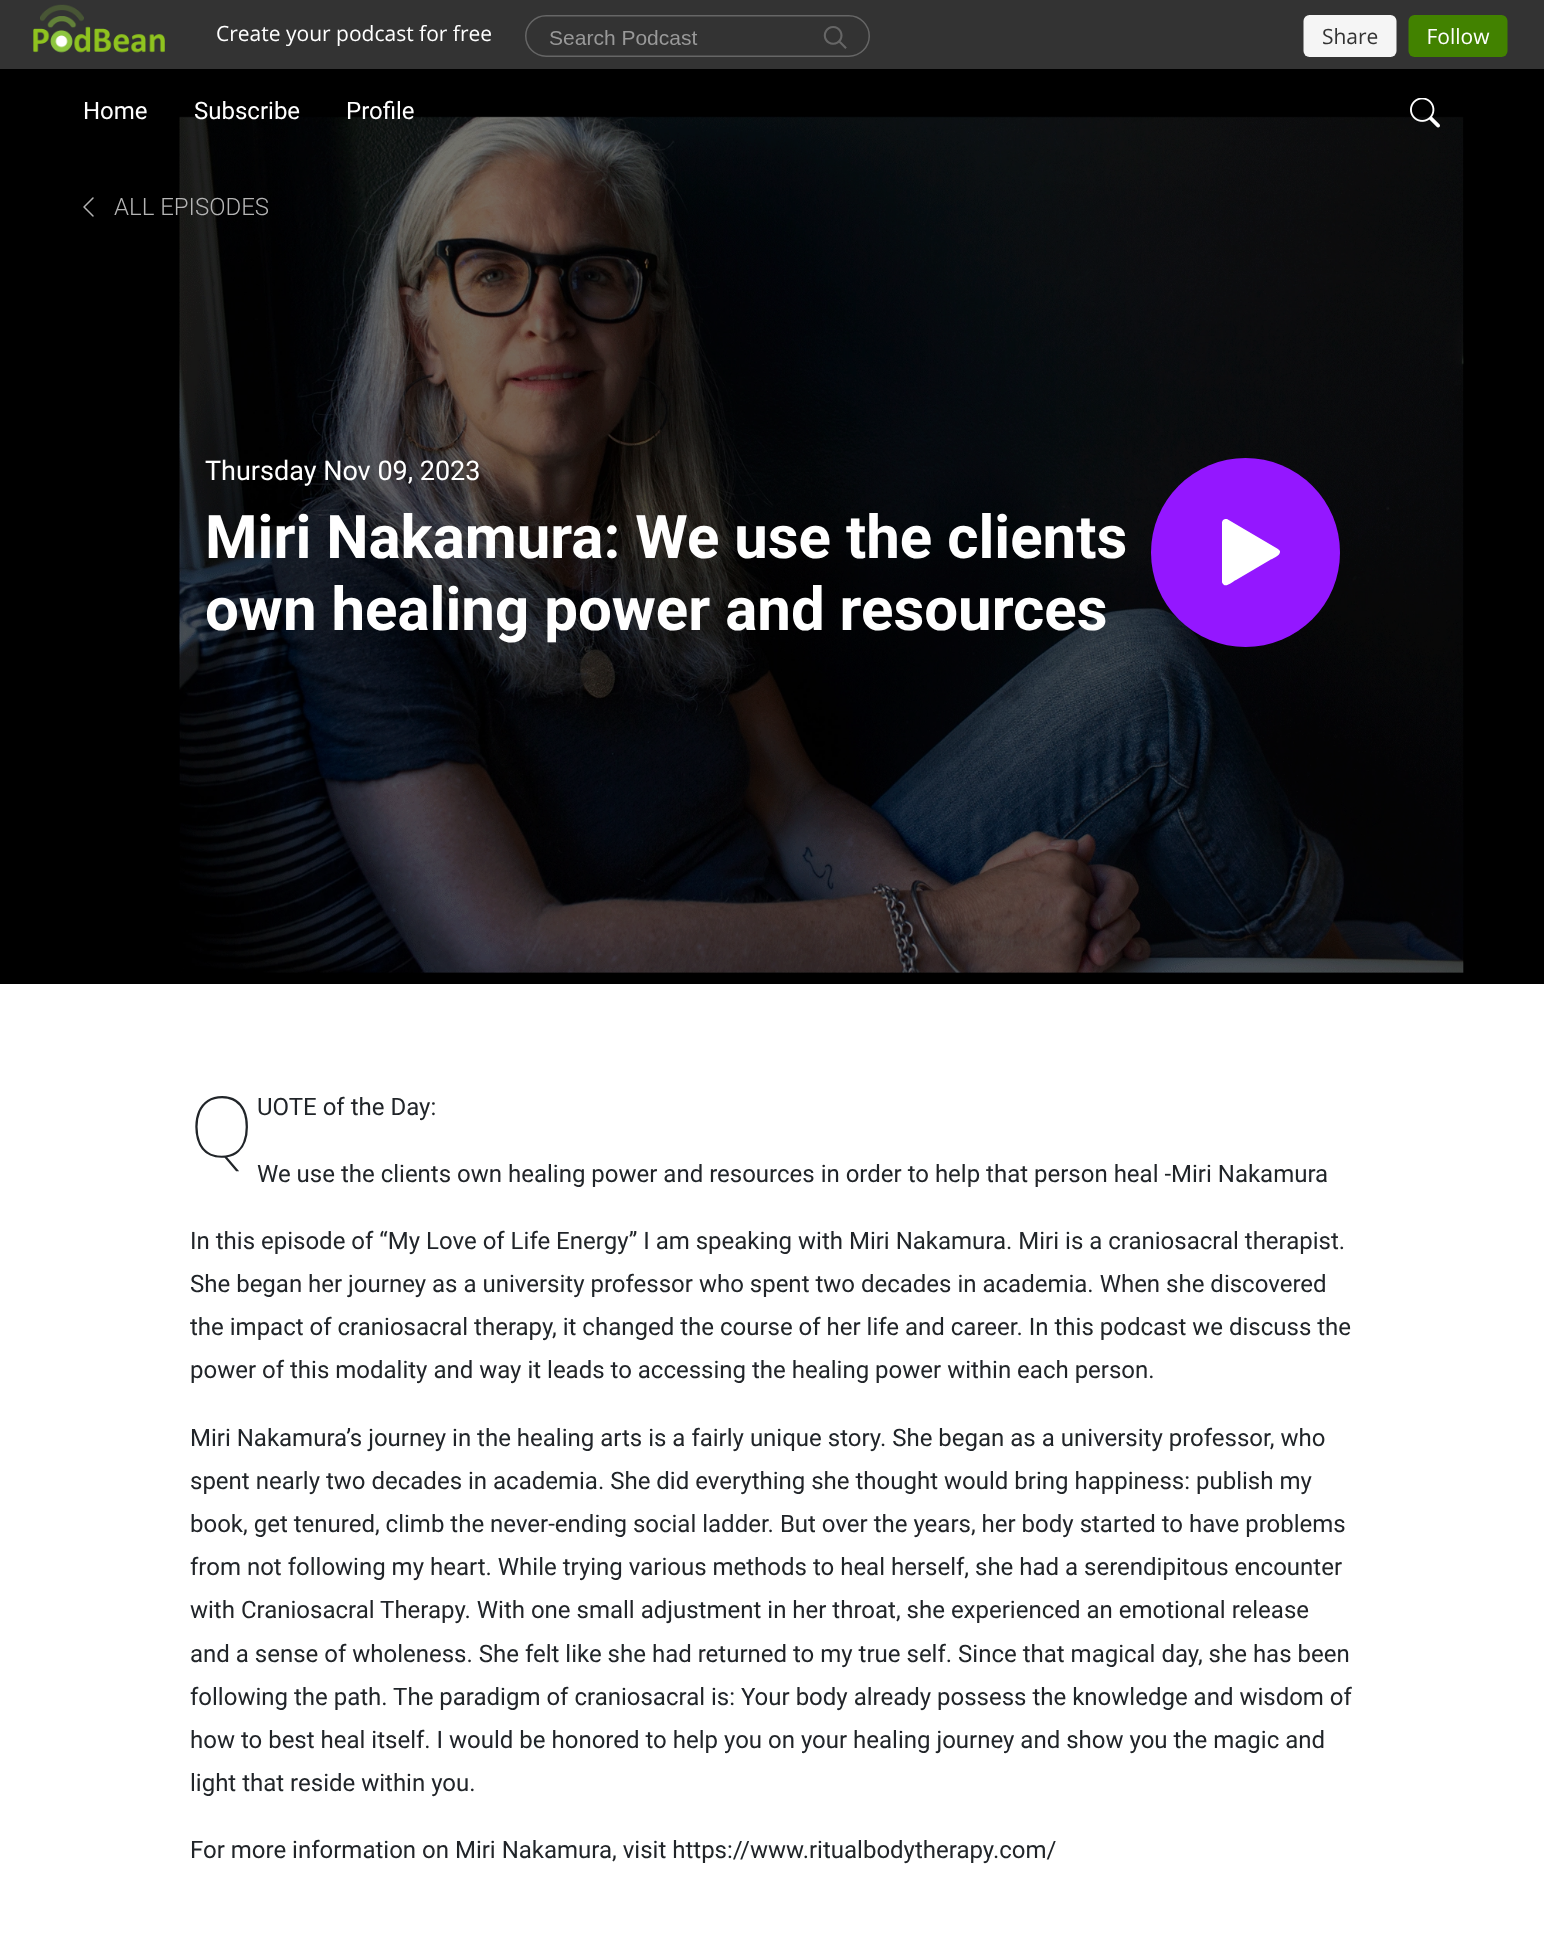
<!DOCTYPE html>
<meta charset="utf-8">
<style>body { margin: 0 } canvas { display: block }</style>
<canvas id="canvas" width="1544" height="1955"></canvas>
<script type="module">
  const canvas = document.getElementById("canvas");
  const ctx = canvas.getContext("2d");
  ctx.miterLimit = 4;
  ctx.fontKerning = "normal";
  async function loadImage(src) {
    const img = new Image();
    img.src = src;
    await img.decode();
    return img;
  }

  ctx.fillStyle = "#ffffff";
  ctx.fillRect(0, 0, 1544, 1955);
  ctx.fillStyle = "#333333";
  ctx.fillRect(0, 0, 1544, 69);
  ctx.drawImage(await loadImage("img1.png"), 33, 4, 1475, 53);
  ctx.drawImage(await loadImage("img3.png"), 0, 69, 1544, 915);
  ctx.font = "24px Roboto";
  ctx.fillStyle = "#ffffff";
  ctx.fillText("Home", 83, 119);
  ctx.fillText("Subscribe", 194, 119);
  ctx.fillText("Profile", 346, 119);
  ctx.drawImage(await loadImage("img2.png"), 1410, 98, 30, 30);
  ctx.drawImage(await loadImage("img4.png"), 83, 197, 11, 20);
  ctx.font = "300 24px Roboto";
  ctx.fillStyle = "#b5b5b5";
  ctx.fillText("ALL EPISODES", 114, 215);
  ctx.font = "27px Roboto";
  ctx.fillStyle = "#ffffff";
  ctx.fillText("Thursday Nov 09, 2023", 205, 480);
  ctx.font = "bold 60px Roboto";
  ctx.fillText("Miri Nakamura: We use the clients", 205, 558);
  ctx.fillText("own healing power and resources", 205, 630);
  ctx.fillStyle = "#9417ff";
  ctx.beginPath();
  ctx.arc(1245.5, 552.5, 94.5, 0, Math.PI * 2);
  ctx.fill();
  ctx.fillStyle = "#ffffff";
  ctx.beginPath();
  ctx.moveTo(1278, 549);
  ctx.lineTo(1227, 519);
  ctx.lineTo(1225, 519);
  ctx.lineTo(1223, 520);
  ctx.lineTo(1222, 522);
  ctx.lineTo(1222, 582);
  ctx.bezierCurveTo(1222, 583, 1223, 584, 1224, 585);
  ctx.bezierCurveTo(1227, 587, 1235, 580, 1236, 580);
  ctx.lineTo(1270, 560);
  ctx.bezierCurveTo(1271, 559, 1281, 556, 1280, 551);
  ctx.closePath();
  ctx.fill();
  ctx.font = "100 84px Noto Sans";
  ctx.fillStyle = "#212529";
  ctx.fillText("Q", 190, 1157);
  ctx.font = "24px Roboto";
  ctx.fillText("UOTE of the Day:", 257, 1115);
  ctx.fillText("We use the clients own healing power and resources in order to help that person heal -Miri Nakamura", 257, 1182);
  ctx.fillText("In this episode of “My Love of Life Energy” I am speaking with Miri Nakamura. Miri is a craniosacral therapist.", 190, 1249);
  ctx.fillText("She began her journey as a university professor who spent two decades in academia. When she discovered", 190, 1292);
  ctx.fillText("the impact of craniosacral therapy, it changed the course of her life and career. In this podcast we discuss the", 190, 1335);
  ctx.fillText("power of this modality and way it leads to accessing the healing power within each person.", 190, 1378);
  ctx.fillText("Miri Nakamura’s journey in the healing arts is a fairly unique story. She began as a university professor, who", 190, 1446);
  ctx.fillText("spent nearly two decades in academia. She did everything she thought would bring happiness: publish my", 190, 1489);
  ctx.fillText("book, get tenured, climb the never-ending social ladder. But over the years, her body started to have problems", 190, 1532);
  ctx.fillText("from not following my heart. While trying various methods to heal herself, she had a serendipitous encounter", 190, 1575);
  ctx.fillText("with Craniosacral Therapy. With one small adjustment in her throat, she experienced an emotional release", 190, 1618);
  ctx.fillText("and a sense of wholeness. She felt like she had returned to my true self. Since that magical day, she has been", 190, 1662);
  ctx.fillText("following the path. The paradigm of craniosacral is: Your body already possess the knowledge and wisdom of", 190, 1705);
  ctx.fillText("how to best heal itself. I would be honored to help you on your healing journey and show you the magic and", 190, 1748);
  ctx.fillText("light that reside within you.", 190, 1791);
  ctx.fillText("For more information on Miri Nakamura, visit https://www.ritualbodytherapy.com/", 190, 1858);
</script>
